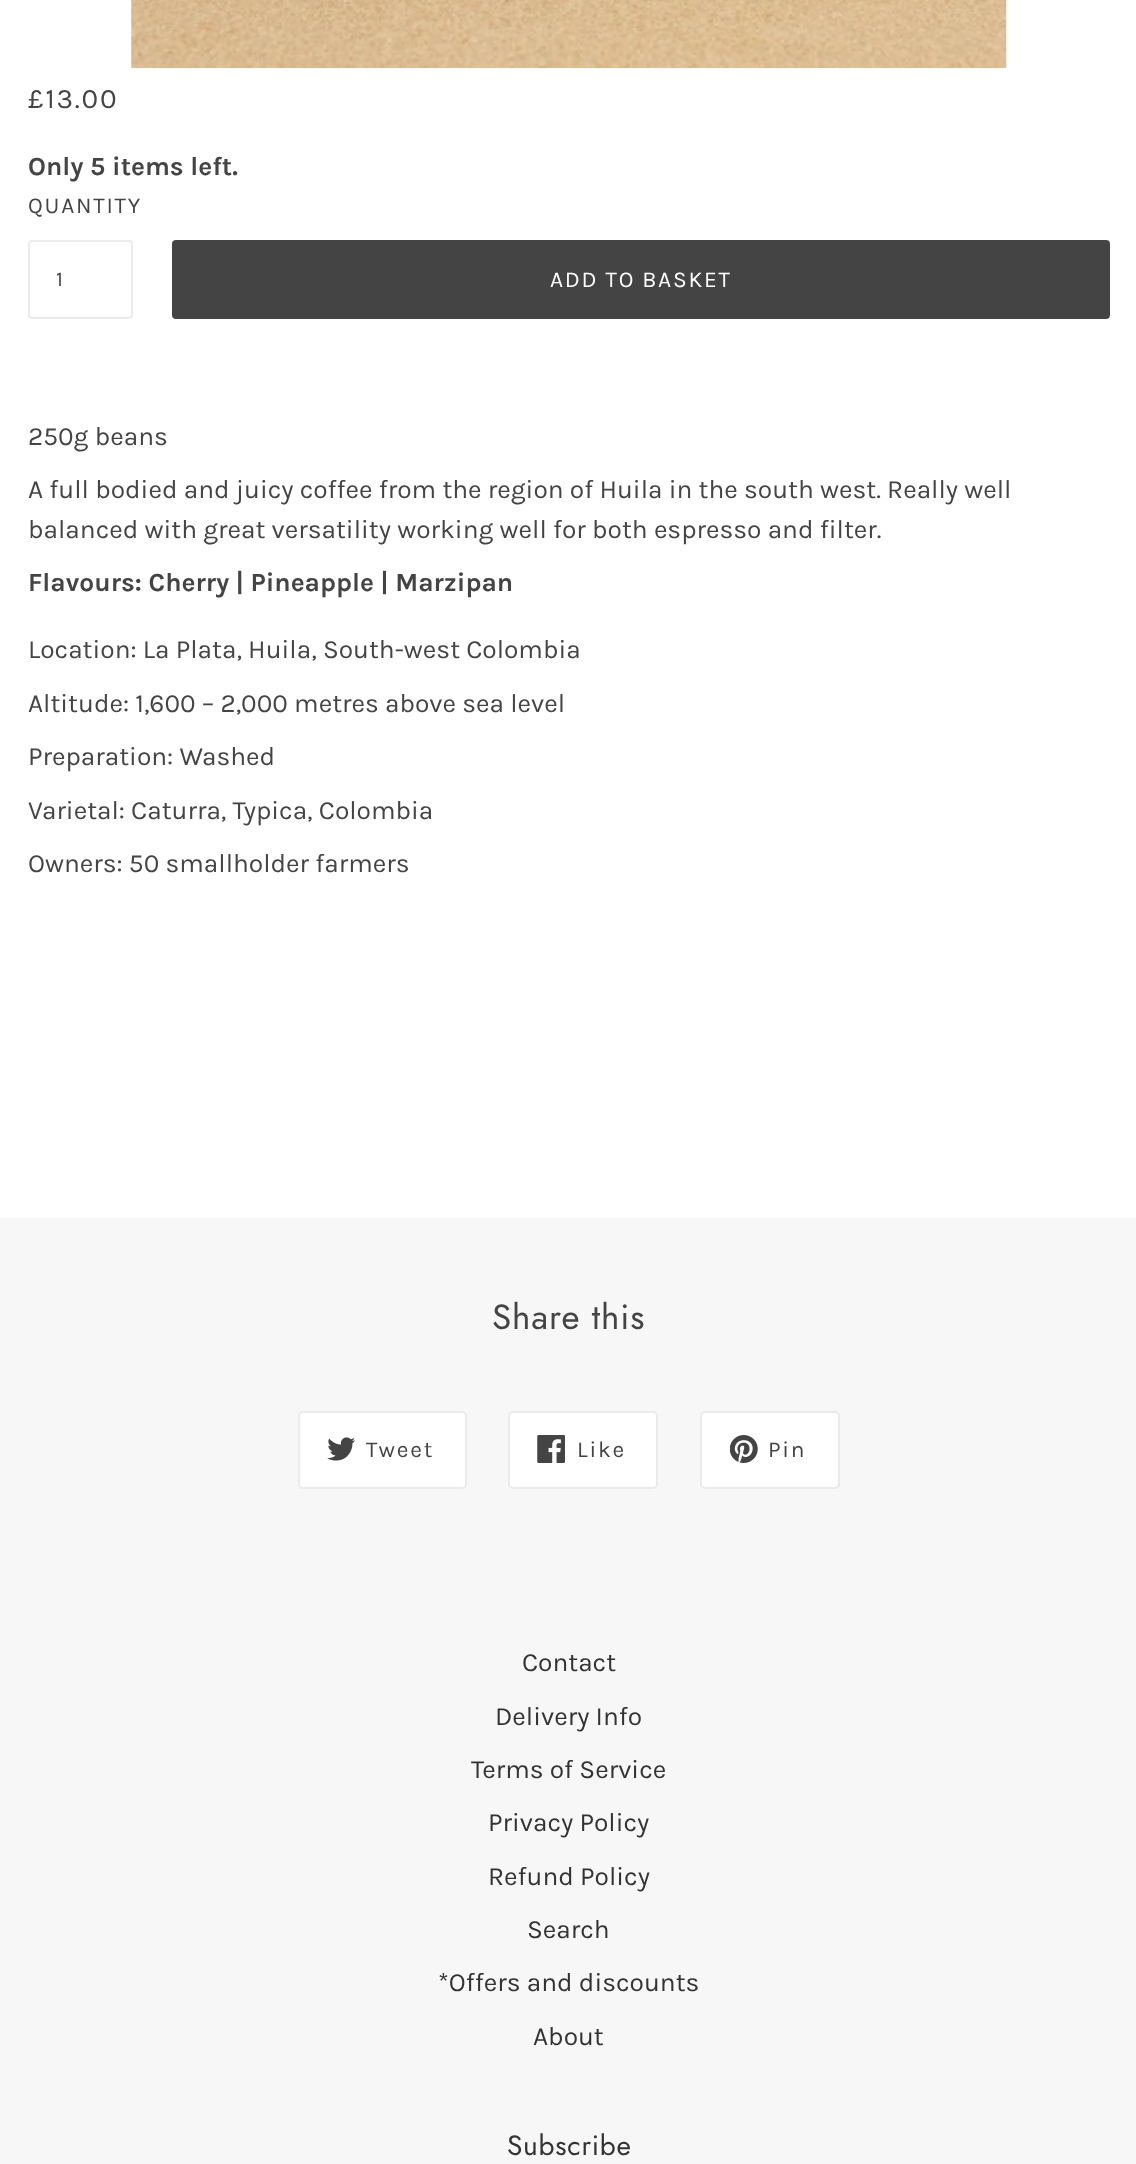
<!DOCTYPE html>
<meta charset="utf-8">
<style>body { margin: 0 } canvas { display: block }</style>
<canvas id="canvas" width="1136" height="2164"></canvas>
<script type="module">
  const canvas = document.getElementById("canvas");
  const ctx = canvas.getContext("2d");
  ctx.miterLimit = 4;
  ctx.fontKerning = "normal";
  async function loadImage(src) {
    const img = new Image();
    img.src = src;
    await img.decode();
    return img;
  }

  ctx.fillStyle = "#ffffff";
  ctx.fillRect(0, 0, 1136, 2164);
  ctx.drawImage(await loadImage("img1.png"), 131, 0, 876, 69);
  ctx.letterSpacing = "1.75px";
  ctx.font = "28px Karla";
  ctx.fillStyle = "#444444";
  ctx.fillText("£13.00", 28, 108);
  ctx.letterSpacing = "0px";
  ctx.font = "bold 26.25px Karla";
  ctx.fillText("Only 5 items left.", 28, 175);
  ctx.letterSpacing = "1.75px";
  ctx.font = "22.75px Karla";
  ctx.fillText("QUANTITY", 28, 213);
  ctx.beginPath();
  ctx.roundRect(29, 241, 103, 77, 3);
  ctx.strokeStyle = "#ebebeb";
  ctx.lineWidth = 2;
  ctx.stroke();
  ctx.letterSpacing = "1px";
  ctx.font = "21px Karla";
  ctx.fillText("1", 56, 286);
  ctx.beginPath();
  ctx.roundRect(172, 240, 938, 79, 4);
  ctx.fill();
  ctx.letterSpacing = "1.75px";
  ctx.font = "22.75px Karla";
  ctx.fillStyle = "#ffffff";
  ctx.fillText("ADD TO BASKET", 550, 287);
  ctx.letterSpacing = "0px";
  ctx.font = "26.25px Karla";
  ctx.fillStyle = "#444444";
  ctx.fillText("250g beans", 28, 445);
  ctx.fillText("A full bodied and juicy coffee from the region of Huila in the south west. Really well", 28, 498);
  ctx.fillText("balanced with great versatility working well for both espresso and filter.", 28, 538);
  ctx.font = "bold 26.25px Karla";
  ctx.fillText("Flavours: Cherry | Pineapple | Marzipan", 28, 591);
  ctx.font = "26.25px Karla";
  ctx.fillText("Location: La Plata, Huila, South-west Colombia", 28, 658);
  ctx.fillText("Altitude: 1,600 – 2,000 metres above sea level", 28, 712);
  ctx.fillText("Preparation: Washed", 28, 765);
  ctx.fillText("Varietal: Caturra, Typica, Colombia", 28, 819);
  ctx.fillText("Owners: 50 smallholder farmers", 28, 872);
  ctx.fillStyle = "#f7f7f7";
  ctx.fillRect(0, 1218, 1136, 946);
  ctx.letterSpacing = "0.9px";
  ctx.font = "35px Jost";
  ctx.fillStyle = "#444444";
  ctx.fillText("Share this", 492, 1329);
  ctx.fillStyle = "#ffffff";
  ctx.beginPath();
  ctx.roundRect(299, 1412, 167, 76, 4);
  ctx.fill();
  ctx.stroke();
  ctx.drawImage(await loadImage("img2.png"), 327, 1437, 28, 24);
  ctx.letterSpacing = "1.75px";
  ctx.font = "22.75px Karla";
  ctx.fillStyle = "#444444";
  ctx.fillText("Tweet", 366, 1457);
  ctx.fillStyle = "#ffffff";
  ctx.beginPath();
  ctx.roundRect(509, 1412, 148, 76, 4);
  ctx.fill();
  ctx.stroke();
  ctx.drawImage(await loadImage("img3.png"), 537, 1435, 28, 28);
  ctx.fillStyle = "#444444";
  ctx.fillText("Like", 577, 1457);
  ctx.fillStyle = "#ffffff";
  ctx.beginPath();
  ctx.roundRect(701, 1412, 138, 76, 4);
  ctx.fill();
  ctx.stroke();
  ctx.drawImage(await loadImage("img4.png"), 730, 1435, 28, 28);
  ctx.fillStyle = "#444444";
  ctx.fillText("Pin", 768, 1457);
  ctx.letterSpacing = "0px";
  ctx.font = "26.25px Karla";
  ctx.fillStyle = "#333333";
  ctx.fillText("Contact", 522, 1671);
  ctx.fillText("Delivery Info", 495, 1725);
  ctx.fillText("Terms of Service", 471, 1778);
  ctx.fillText("Privacy Policy", 488, 1831);
  ctx.fillText("Refund Policy", 488, 1885);
  ctx.fillText("Search", 527, 1938);
  ctx.fillText("*Offers and discounts", 438, 1991);
  ctx.fillText("About", 533, 2045);
  ctx.letterSpacing = "0.75px";
  ctx.font = "28px Jost";
  ctx.fillText("Subscribe", 507, 2155);
</script>
